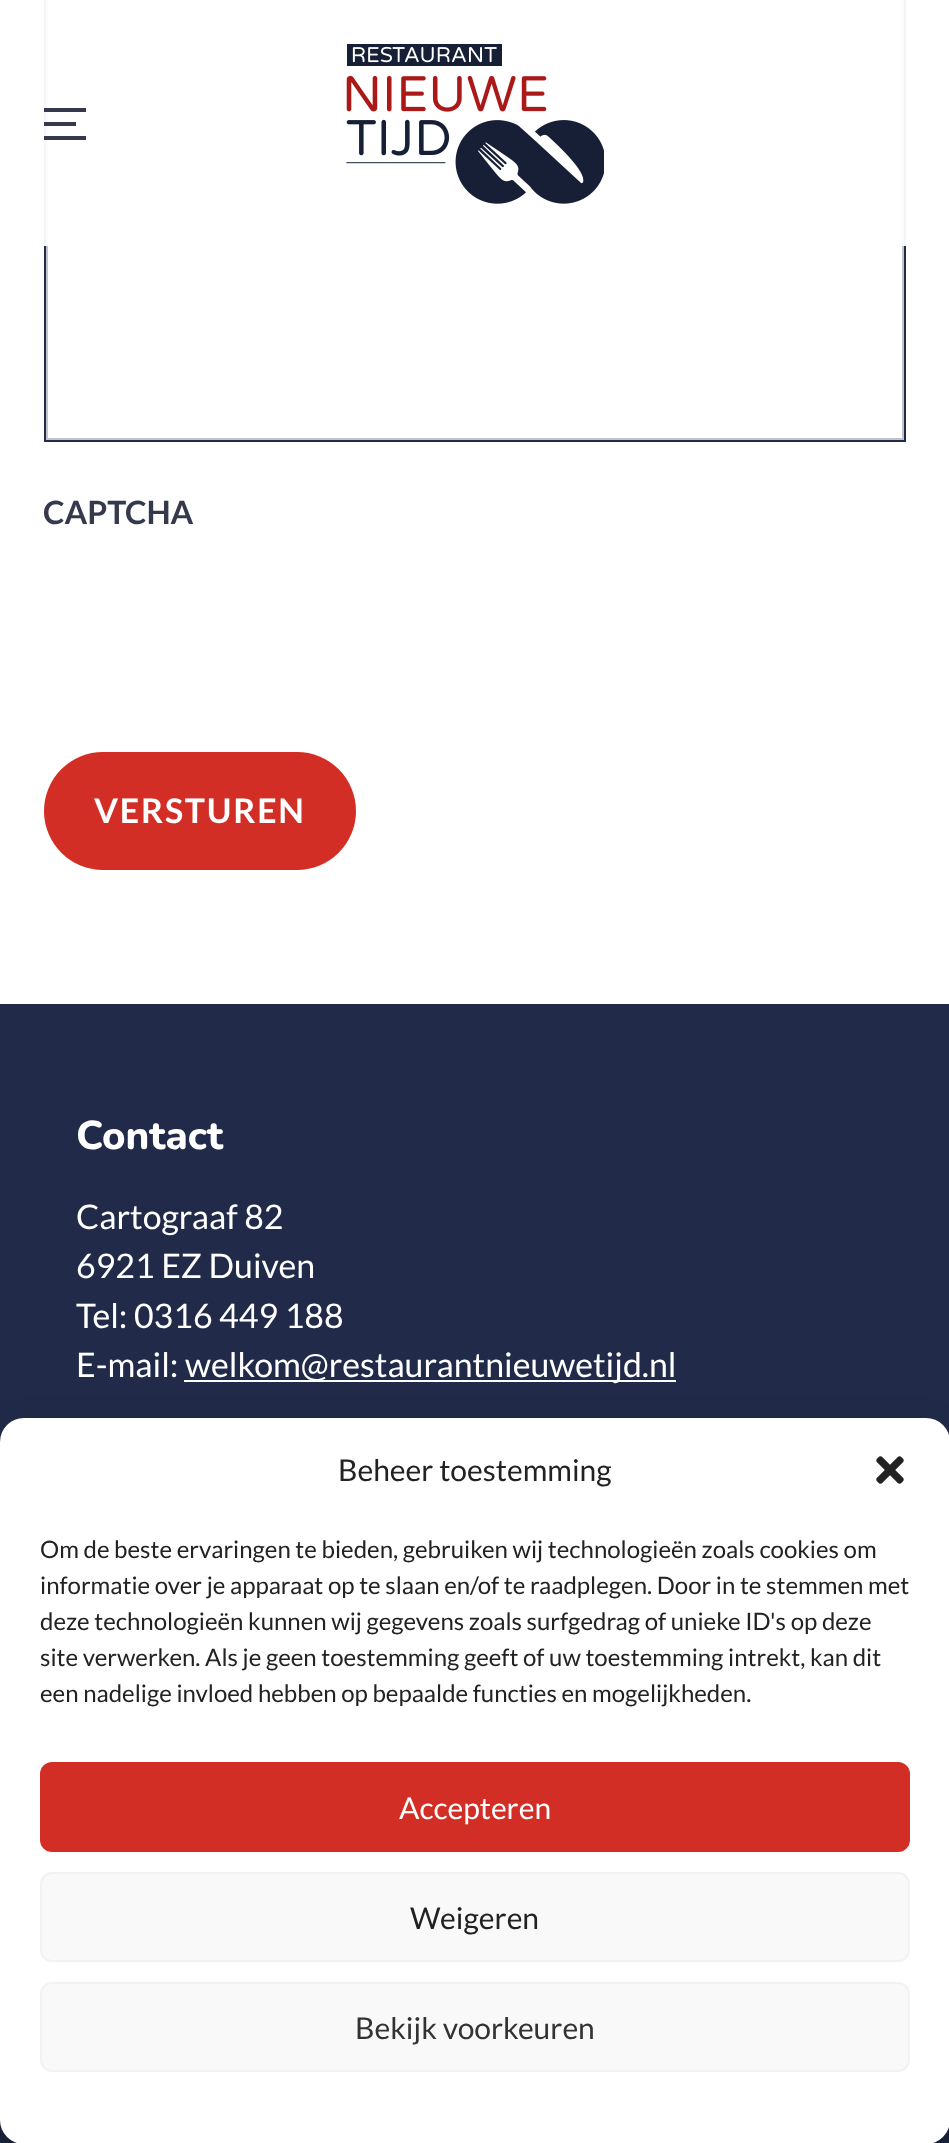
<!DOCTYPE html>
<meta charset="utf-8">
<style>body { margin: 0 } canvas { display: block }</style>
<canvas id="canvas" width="949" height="2143"></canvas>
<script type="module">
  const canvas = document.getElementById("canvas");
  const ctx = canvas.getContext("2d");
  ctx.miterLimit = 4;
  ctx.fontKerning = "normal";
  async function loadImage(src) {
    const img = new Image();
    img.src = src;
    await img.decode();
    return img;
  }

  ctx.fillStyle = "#ffffff";
  ctx.fillRect(0, 0, 949, 2143);
  ctx.strokeStyle = "#c2c4c9";
  ctx.lineWidth = 2;
  ctx.strokeRect(47, -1, 856, 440);
  ctx.strokeStyle = "#212b49";
  ctx.strokeRect(45, -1, 860, 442);
  ctx.fillStyle = "rgba(255, 255, 255, 0.95)";
  ctx.fillRect(44, 0, 862, 246);
  ctx.drawImage(await loadImage("img1.png"), 346, 44, 258, 160);
  ctx.fillStyle = "#34394b";
  ctx.fillRect(44, 108, 42, 4);
  ctx.fillRect(44, 122, 32, 4);
  ctx.fillRect(44, 136, 42, 4);
  ctx.font = "bold 32px Lato";
  ctx.fillText("CAPTCHA", 43, 524);
  ctx.fillStyle = "#d22e26";
  ctx.beginPath();
  ctx.roundRect(44, 752, 312, 118, 59);
  ctx.fill();
  ctx.letterSpacing = "1.75px";
  ctx.font = "bold 33.9px Lato";
  ctx.fillStyle = "#ffffff";
  ctx.fillText("VERSTUREN", 94, 823);
  ctx.fillStyle = "#212b49";
  ctx.fillRect(0, 1004, 949, 1139);
  ctx.letterSpacing = "0px";
  ctx.font = "800 40px Nunito";
  ctx.fillStyle = "#ffffff";
  ctx.fillText("Contact", 76, 1149);
  ctx.font = "33.9px Lato";
  ctx.fillText("Cartograaf 82", 76, 1229);
  ctx.fillText("6921 EZ Duiven", 76, 1278);
  ctx.fillText("Tel: 0316 449 188", 76, 1328);
  ctx.fillText("E-mail:", 76, 1377);
  ctx.fillRect(184, 1380, 492, 2);
  ctx.fillText("welkom@restaurantnieuwetijd.nl", 185, 1377);
  ctx.fillStyle = "rgba(0, 0, 0, 0.23)";
  ctx.filter = "blur(6px)";
  ctx.beginPath();
  ctx.roundRect(0, 1430, 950, 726, 24);
  ctx.fill();
  ctx.filter = "none";
  ctx.fillStyle = "rgba(0, 0, 0, 0.19)";
  ctx.filter = "blur(20px)";
  ctx.beginPath();
  ctx.roundRect(0, 1438, 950, 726, 24);
  ctx.fill();
  ctx.filter = "none";
  ctx.fillStyle = "#ffffff";
  ctx.beginPath();
  ctx.roundRect(0, 1418, 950, 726, 24);
  ctx.fill();
  ctx.font = "30px Lato";
  ctx.fillStyle = "#222222";
  ctx.fillText("Beheer toestemming", 338, 1481);
  ctx.drawImage(await loadImage("img2.png"), 876, 1456, 28, 28);
  ctx.font = "24px Lato";
  ctx.fillText("Om de beste ervaringen te bieden, gebruiken wij technologieën zoals cookies om", 40, 1558);
  ctx.fillText("informatie over je apparaat op te slaan en/of te raadplegen. Door in te stemmen met", 40, 1594);
  ctx.fillText("deze technologieën kunnen wij gegevens zoals surfgedrag of unieke ID's op deze", 40, 1630);
  ctx.fillText("site verwerken. Als je geen toestemming geeft of uw toestemming intrekt, kan dit", 40, 1666);
  ctx.fillText("een nadelige invloed hebben op bepaalde functies en mogelijkheden.", 40, 1702);
  ctx.fillStyle = "#d22e26";
  ctx.beginPath();
  ctx.roundRect(41, 1763, 868, 88, 11);
  ctx.fill();
  ctx.strokeStyle = "#d22e26";
  ctx.stroke();
  ctx.font = "30px Lato";
  ctx.fillStyle = "#ffffff";
  ctx.fillText("Accepteren", 399, 1819);
  ctx.fillStyle = "#f9f9f9";
  ctx.beginPath();
  ctx.roundRect(41, 1873, 868, 88, 11);
  ctx.fill();
  ctx.strokeStyle = "#f2f2f2";
  ctx.stroke();
  ctx.fillStyle = "#222222";
  ctx.fillText("Weigeren", 410, 1929);
  ctx.fillStyle = "#f9f9f9";
  ctx.beginPath();
  ctx.roundRect(41, 1983, 868, 88, 11);
  ctx.fill();
  ctx.stroke();
  ctx.fillStyle = "#333333";
  ctx.fillText("Bekijk voorkeuren", 355, 2039);
</script>
